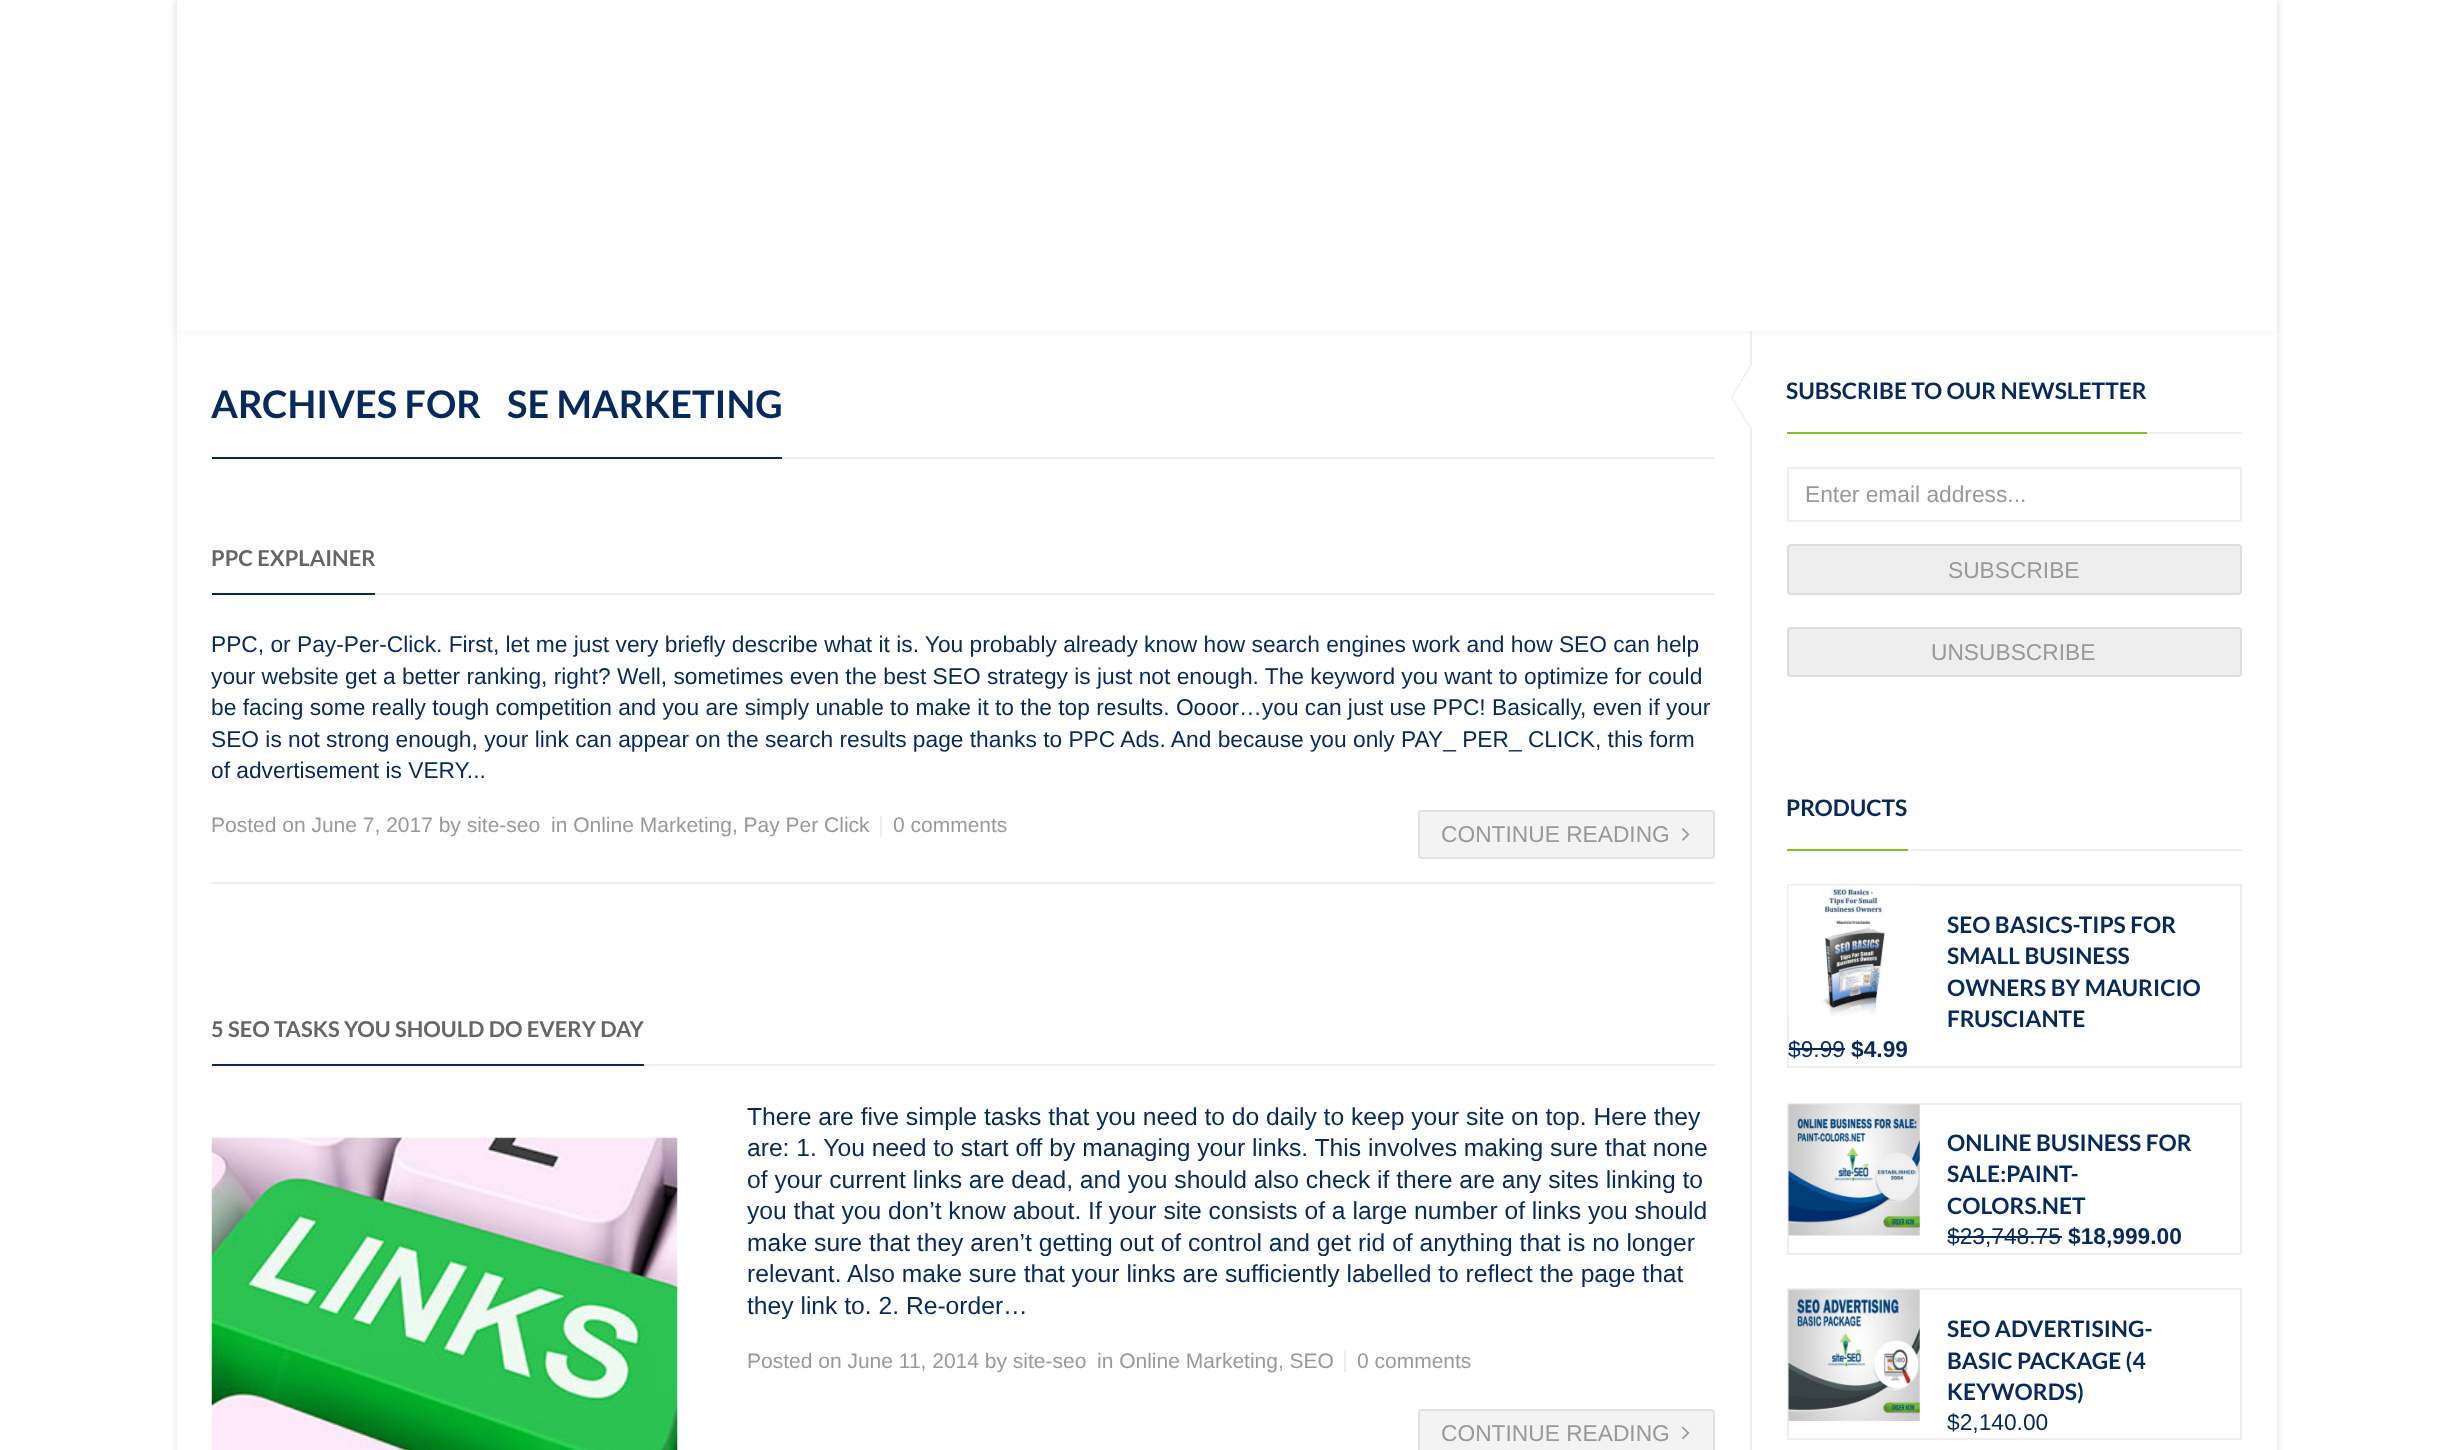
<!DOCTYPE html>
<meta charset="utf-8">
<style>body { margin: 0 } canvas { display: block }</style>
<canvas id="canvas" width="2451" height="1450"></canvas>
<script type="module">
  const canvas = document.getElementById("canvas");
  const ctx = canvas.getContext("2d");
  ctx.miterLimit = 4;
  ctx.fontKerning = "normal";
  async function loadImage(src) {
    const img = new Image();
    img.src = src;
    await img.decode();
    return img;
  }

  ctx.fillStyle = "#ffffff";
  ctx.fillRect(0, 0, 2451, 1450);
  ctx.fillStyle = "rgba(0, 0, 0, 0.1)";
  ctx.filter = "blur(5px)";
  ctx.beginPath();
  ctx.rect(177, 0, 2100, 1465);
  ctx.fill();
  ctx.filter = "none";
  ctx.fillStyle = "#ffffff";
  ctx.fillRect(177, 331, 1573, 1119);
  ctx.fillRect(1752, 331, 525, 1119);
  ctx.fillStyle = "#eeeeee";
  ctx.fillRect(1750, 331, 2, 1119);
  ctx.fillStyle = "rgba(0, 0, 0, 0.05)";
  ctx.filter = "blur(4.5px)";
  ctx.beginPath();
  ctx.rect(177, 0, 2100, 331);
  ctx.fill();
  ctx.filter = "none";
  ctx.fillStyle = "#ffffff";
  ctx.fillRect(177, 0, 2100, 331);
  ctx.fillStyle = "#eeeeee";
  ctx.fillRect(782, 457, 933, 2);
  ctx.fillStyle = "#06295e";
  ctx.fillRect(212, 457, 570, 2);
  ctx.font = "bold 38px Lato";
  ctx.fillText("ARCHIVES FOR", 211, 418);
  ctx.fillText("SE MARKETING", 507, 418);
  ctx.fillStyle = "#eeeeee";
  ctx.fillRect(212, 882, 1503, 2);
  ctx.fillRect(375, 593, 1340, 2);
  ctx.fillStyle = "#06295e";
  ctx.fillRect(212, 593, 163, 2);
  ctx.font = "bold 21.9px Lato";
  ctx.fillStyle = "#666666";
  ctx.fillText("PPC EXPLAINER", 211, 566);
  ctx.font = "22.75px Liberation Sans";
  ctx.fillStyle = "#06295e";
  ctx.fillText("PPC, or Pay-Per-Click. First, let me just very briefly describe what it is. You probably already know how search engines work and how SEO can help", 211, 652);
  ctx.fillText("your website get a better ranking, right? Well, sometimes even the best SEO strategy is just not enough. The keyword you want to optimize for could", 211, 684);
  ctx.fillText("be facing some really tough competition and you are simply unable to make it to the top results. Oooor…you can just use PPC! Basically, even if your", 211, 715);
  ctx.fillText("SEO is not strong enough, your link can appear on the search results page thanks to PPC Ads. And because you only PAY_ PER_ CLICK, this form", 211, 747);
  ctx.fillText("of advertisement is VERY...", 211, 778);
  ctx.font = "21px Liberation Sans";
  ctx.fillStyle = "#999999";
  ctx.fillText("Posted on June 7, 2017 by site-seo", 211, 832);
  ctx.fillText("in Online Marketing, Pay Per Click", 551, 832);
  ctx.fillStyle = "#eeeeee";
  ctx.fillRect(880, 816, 2, 21);
  ctx.fillStyle = "#999999";
  ctx.fillText("0 comments", 893, 832);
  ctx.fillStyle = "#f3f3f3";
  ctx.beginPath();
  ctx.roundRect(1418, 810, 297, 49, 4);
  ctx.fill();
  ctx.beginPath();
  ctx.roundRect(1419, 811, 295, 47, 3);
  ctx.strokeStyle = "rgba(0, 0, 0, 0.07)";
  ctx.lineWidth = 2;
  ctx.stroke();
  ctx.font = "22.75px Liberation Sans";
  ctx.fillStyle = "#999999";
  ctx.fillText("CONTINUE READING", 1441, 842);
  ctx.drawImage(await loadImage("img1.png"), 1682, 828, 8, 13);
  ctx.fillStyle = "#eeeeee";
  ctx.fillRect(644, 1064, 1071, 2);
  ctx.fillStyle = "#06295e";
  ctx.fillRect(212, 1064, 432, 2);
  ctx.font = "bold 21.9px Lato";
  ctx.fillStyle = "#666666";
  ctx.fillText("5 SEO TASKS YOU SHOULD DO EVERY DAY", 211, 1037);
  ctx.drawImage(await loadImage("img2.png"), 211, 1136, 467, 314);
  ctx.font = "24.65px Liberation Sans";
  ctx.fillStyle = "#06295e";
  ctx.fillText("There are five simple tasks that you need to do daily to keep your site on top. Here they", 747, 1125);
  ctx.fillText("are: 1. You need to start off by managing your links. This involves making sure that none", 747, 1156);
  ctx.fillText("of your current links are dead, and you should also check if there are any sites linking to", 747, 1188);
  ctx.fillText("you that you don’t know about. If your site consists of a large number of links you should", 747, 1219);
  ctx.fillText("make sure that they aren’t getting out of control and get rid of anything that is no longer", 747, 1251);
  ctx.fillText("relevant. Also make sure that your links are sufficiently labelled to reflect the page that", 747, 1282);
  ctx.fillText("they link to. 2. Re-order…", 747, 1314);
  ctx.font = "21px Liberation Sans";
  ctx.fillStyle = "#999999";
  ctx.fillText("Posted on June 11, 2014 by site-seo", 747, 1368);
  ctx.fillText("in Online Marketing, SEO", 1097, 1368);
  ctx.fillStyle = "#eeeeee";
  ctx.fillRect(1344, 1351, 2, 21);
  ctx.fillStyle = "#999999";
  ctx.fillText("0 comments", 1357, 1368);
  ctx.fillStyle = "#f3f3f3";
  ctx.beginPath();
  ctx.roundRect(1418, 1409, 297, 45, 4);
  ctx.fill();
  ctx.beginPath();
  ctx.roundRect(1419, 1410, 295, 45, 3);
  ctx.stroke();
  ctx.font = "22.75px Liberation Sans";
  ctx.fillStyle = "#999999";
  ctx.fillText("CONTINUE READING", 1441, 1441);
  ctx.drawImage(await loadImage("img3.png"), 1682, 1426, 8, 14);
  ctx.fillStyle = "#eeeeee";
  ctx.beginPath();
  ctx.moveTo(1752, 362);
  ctx.lineTo(1752, 432);
  ctx.lineTo(1731, 397);
  ctx.closePath();
  ctx.fill();
  ctx.fillStyle = "#ffffff";
  ctx.beginPath();
  ctx.moveTo(1754, 362);
  ctx.lineTo(1754, 432);
  ctx.lineTo(1732, 397);
  ctx.closePath();
  ctx.fill();
  ctx.fillStyle = "#eeeeee";
  ctx.fillRect(2147, 432, 95, 2);
  ctx.fillStyle = "#80c41c";
  ctx.fillRect(1787, 432, 360, 2);
  ctx.font = "bold 22.75px Lato";
  ctx.fillStyle = "#06295e";
  ctx.fillText("SUBSCRIBE TO OUR NEWSLETTER", 1786, 399);
  ctx.strokeStyle = "#eeeeee";
  ctx.strokeRect(1788, 468, 453, 53);
  ctx.font = "22.75px Liberation Sans";
  ctx.fillStyle = "#999999";
  ctx.fillText("Enter email address...", 1805, 502);
  ctx.fillStyle = "#eeeeee";
  ctx.beginPath();
  ctx.roundRect(1787, 544, 455, 51, 4);
  ctx.fill();
  ctx.beginPath();
  ctx.roundRect(1788, 545, 453, 49, 3);
  ctx.strokeStyle = "rgba(0, 0, 0, 0.07)";
  ctx.stroke();
  ctx.fillStyle = "#999999";
  ctx.fillText("SUBSCRIBE", 1948, 578);
  ctx.fillStyle = "#eeeeee";
  ctx.beginPath();
  ctx.roundRect(1787, 627, 455, 50, 4);
  ctx.fill();
  ctx.beginPath();
  ctx.roundRect(1788, 628, 453, 48, 3);
  ctx.stroke();
  ctx.fillStyle = "#999999";
  ctx.fillText("UNSUBSCRIBE", 1931, 660);
  ctx.fillStyle = "#eeeeee";
  ctx.fillRect(1908, 849, 334, 2);
  ctx.fillStyle = "#80c41c";
  ctx.fillRect(1787, 849, 121, 2);
  ctx.font = "bold 22.75px Lato";
  ctx.fillStyle = "#06295e";
  ctx.fillText("PRODUCTS", 1786, 816);
  ctx.strokeStyle = "#eeeeee";
  ctx.strokeRect(1788, 885, 453, 182);
  ctx.drawImage(await loadImage("img4.png"), 1788, 885, 132, 132);
  ctx.fillText("SEO BASICS-TIPS FOR", 1947, 933);
  ctx.fillText("SMALL BUSINESS", 1947, 964);
  ctx.fillText("OWNERS BY MAURICIO", 1947, 996);
  ctx.fillText("FRUSCIANTE", 1947, 1027);
  ctx.font = "22.75px Liberation Sans";
  ctx.fillText("$9.99", 1788, 1057);
  ctx.fillRect(1789, 1048, 56, 2);
  ctx.font = "bold 22.75px Liberation Sans";
  ctx.fillText("$4.99", 1851, 1057);
  ctx.strokeRect(1788, 1104, 453, 150);
  ctx.drawImage(await loadImage("img5.png"), 1788, 1104, 132, 132);
  ctx.font = "bold 22.75px Lato";
  ctx.fillText("ONLINE BUSINESS FOR", 1947, 1151);
  ctx.fillText("SALE:PAINT-", 1947, 1182);
  ctx.fillText("COLORS.NET", 1947, 1214);
  ctx.font = "22.75px Liberation Sans";
  ctx.fillText("$23,748.75", 1947, 1244);
  ctx.fillRect(1948, 1236, 114, 2);
  ctx.font = "bold 22.75px Liberation Sans";
  ctx.fillText("$18,999.00", 2068, 1244);
  ctx.strokeRect(1788, 1289, 453, 150);
  ctx.drawImage(await loadImage("img6.png"), 1788, 1289, 132, 132);
  ctx.font = "bold 22.75px Lato";
  ctx.fillText("SEO ADVERTISING-", 1947, 1337);
  ctx.fillText("BASIC PACKAGE (4", 1947, 1369);
  ctx.fillText("KEYWORDS)", 1947, 1400);
  ctx.font = "22.75px Liberation Sans";
  ctx.fillText("$2,140.00", 1947, 1430);
</script>
